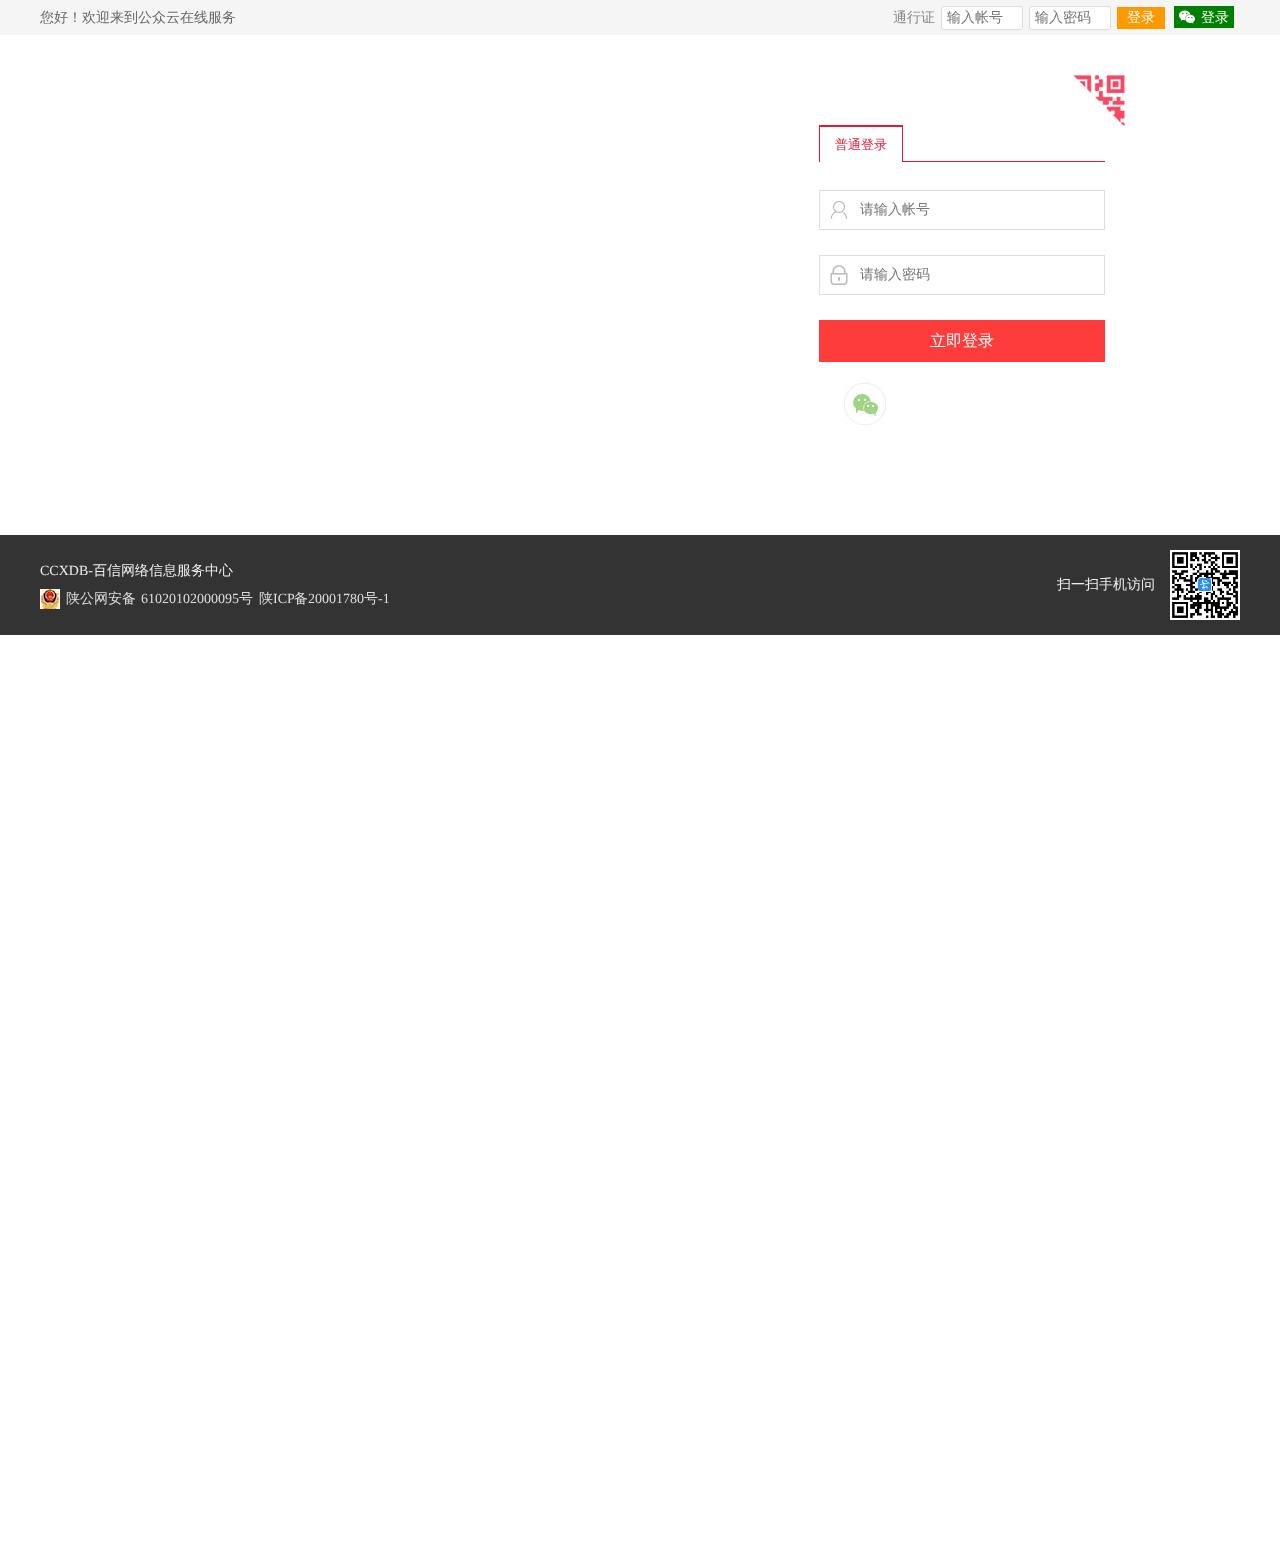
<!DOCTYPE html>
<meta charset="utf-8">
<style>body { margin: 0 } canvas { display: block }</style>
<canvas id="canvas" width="1280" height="1548"></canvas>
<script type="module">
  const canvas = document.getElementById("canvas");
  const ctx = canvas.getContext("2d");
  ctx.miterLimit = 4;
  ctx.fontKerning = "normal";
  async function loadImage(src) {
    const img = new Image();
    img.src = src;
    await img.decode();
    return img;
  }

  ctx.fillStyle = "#ffffff";
  ctx.fillRect(0, 0, 1280, 1548);
  ctx.fillStyle = "#f5f5f5";
  ctx.fillRect(0, 0, 1280, 35);
  ctx.font = "500 14px WenQuanYi Zen Hei";
  ctx.fillStyle = "#666666";
  ctx.fillText("您好！欢迎来到公众云在线服务", 40, 22);
  ctx.fillStyle = "#888888";
  ctx.fillText("通行证", 893, 22);
  ctx.fillStyle = "#ffffff";
  ctx.beginPath();
  ctx.roundRect(941.5, 6.5, 81, 23, 2.5);
  ctx.fill();
  ctx.strokeStyle = "#dddddd";
  ctx.stroke();
  ctx.fillStyle = "#757575";
  ctx.fillText("输入帐号", 947, 22);
  ctx.fillStyle = "#ffffff";
  ctx.beginPath();
  ctx.roundRect(1029.5, 6.5, 81, 23, 2.5);
  ctx.fill();
  ctx.stroke();
  ctx.fillStyle = "#757575";
  ctx.fillText("输入密码", 1035, 22);
  ctx.fillStyle = "#ff9900";
  ctx.fillRect(1117, 7, 48, 22);
  ctx.fillStyle = "#ffffff";
  ctx.fillText("登录", 1127, 22);
  ctx.fillStyle = "#008000";
  ctx.fillRect(1174, 6, 60, 22);
  ctx.drawImage(await loadImage("img1.png"), 1179, 10, 16, 14);
  ctx.fillStyle = "#ffffff";
  ctx.fillText("登录", 1201, 22);
  ctx.drawImage(await loadImage("img2.png"), 1073, 75, 52, 52);
  ctx.fillStyle = "#e31939";
  ctx.fillRect(903, 161, 202, 1);
  ctx.fillRect(819, 125, 84, 2);
  ctx.fillRect(902, 125, 1, 37);
  ctx.fillRect(819, 125, 1, 37);
  ctx.font = "500 13px WenQuanYi Zen Hei";
  ctx.fillText("普通登录", 835, 149);
  ctx.strokeRect(819.5, 190.5, 285, 39);
  ctx.drawImage(await loadImage("img3.png"), 830, 201, 18, 18);
  ctx.font = "500 14px WenQuanYi Zen Hei";
  ctx.fillStyle = "#757575";
  ctx.fillText("请输入帐号", 860, 214);
  ctx.strokeRect(819.5, 255.5, 285, 39);
  ctx.drawImage(await loadImage("img4.png"), 830, 265, 18, 20);
  ctx.fillText("请输入密码", 860, 279);
  ctx.fillStyle = "#ff3c3c";
  ctx.fillRect(819, 320, 286, 42);
  ctx.font = "500 16px WenQuanYi Zen Hei";
  ctx.fillStyle = "#ffffff";
  ctx.fillText("立即登录", 930, 346);
  ctx.drawImage(await loadImage("img5.png"), 844, 382, 43, 43);
  ctx.fillStyle = "#333333";
  ctx.fillRect(0, 535, 1280, 100);
  ctx.font = "14px Liberation Serif";
  ctx.fillStyle = "#eeeeee";
  ctx.fillText("CCXDB-", 40, 575);
  ctx.font = "500 14px WenQuanYi Zen Hei";
  ctx.fillText("百信网络信息服务中心", 93, 575);
  ctx.drawImage(await loadImage("img6.png"), 40, 589, 20, 20);
  ctx.fillStyle = "#dddddd";
  ctx.fillText("陕公网安备", 66, 603);
  ctx.font = "14px Liberation Serif";
  ctx.fillText("61020102000095", 141, 603);
  ctx.font = "500 14px WenQuanYi Zen Hei";
  ctx.fillText("号", 239, 603);
  ctx.fillText("陕", 259, 603);
  ctx.font = "14px Liberation Serif";
  ctx.fillText("ICP", 273, 603);
  ctx.font = "500 14px WenQuanYi Zen Hei";
  ctx.fillText("备", 294, 603);
  ctx.font = "14px Liberation Serif";
  ctx.fillText("20001780", 308, 603);
  ctx.font = "500 14px WenQuanYi Zen Hei";
  ctx.fillText("号", 364, 603);
  ctx.font = "14px Liberation Serif";
  ctx.fillText("-1", 378, 603);
  ctx.font = "500 14px WenQuanYi Zen Hei";
  ctx.fillStyle = "#eeeeee";
  ctx.fillText("扫一扫手机访问", 1057, 589);
  ctx.drawImage(await loadImage("img7.png"), 1170, 550, 70, 70);
</script>
